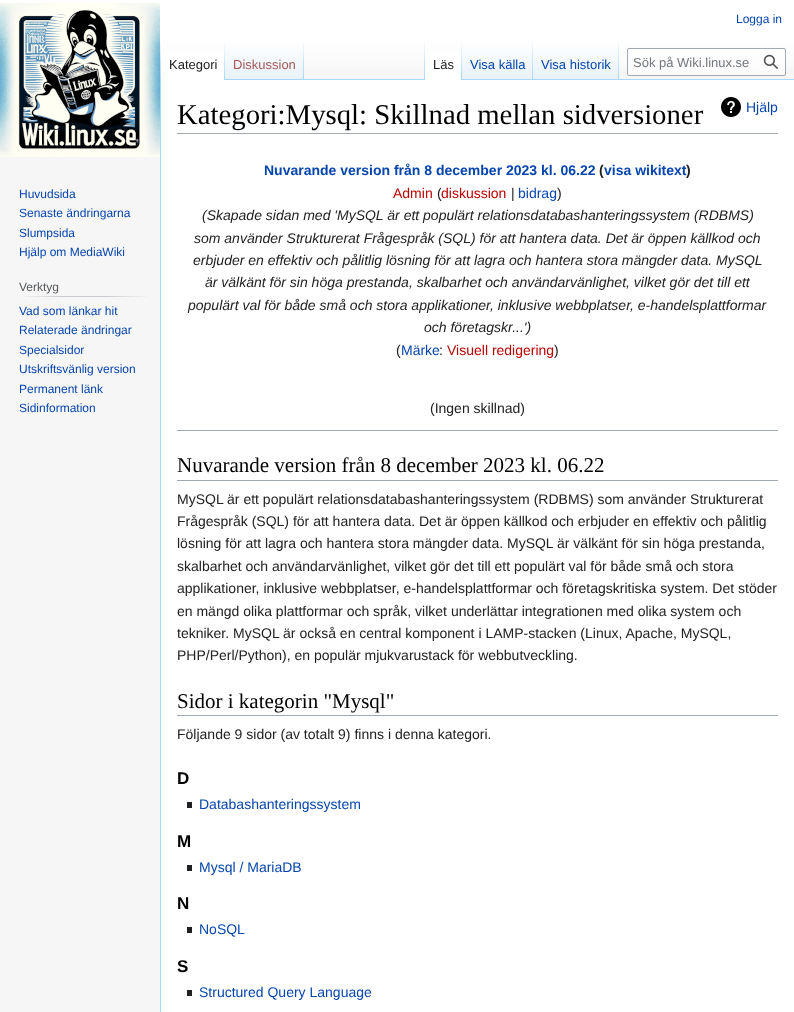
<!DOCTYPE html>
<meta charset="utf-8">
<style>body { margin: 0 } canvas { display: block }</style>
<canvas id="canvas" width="794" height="1012"></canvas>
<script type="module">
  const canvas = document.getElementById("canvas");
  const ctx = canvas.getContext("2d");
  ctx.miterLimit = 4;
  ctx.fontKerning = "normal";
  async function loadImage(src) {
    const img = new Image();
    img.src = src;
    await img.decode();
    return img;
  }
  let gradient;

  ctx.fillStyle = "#f6f6f6";
  ctx.fillRect(0, 0, 794, 1012);
  gradient = ctx.createLinearGradient(397, 0, 397, 80);
  gradient.addColorStop(0.5, "#ffffff");
  gradient.addColorStop(1, "#f6f6f6");
  ctx.fillStyle = gradient;
  ctx.fillRect(0, 0, 794, 69);
  ctx.font = "12px Liberation Sans";
  ctx.fillStyle = "#0645ad";
  ctx.fillText("Logga in", 736, 23);
  ctx.fillStyle = "#a7d7f9";
  ctx.fillRect(160, 79, 1, 933);
  gradient = ctx.createLinearGradient(161, 40, 161, 80);
  gradient.addColorStop(0, "rgba(167, 215, 249, 0)");
  gradient.addColorStop(1, "#a7d7f9");
  ctx.fillStyle = gradient;
  ctx.fillRect(160, 40, 1, 40);
  ctx.fillStyle = "#ffffff";
  ctx.fillRect(161, 51, 63, 29);
  gradient = ctx.createLinearGradient(225, 40, 225, 80);
  gradient.addColorStop(0, "#ffffff");
  gradient.addColorStop(1, "#a7d7f9");
  ctx.fillStyle = gradient;
  ctx.fillRect(224, 40, 1, 40);
  ctx.font = "13px Liberation Sans";
  ctx.fillStyle = "#202122";
  ctx.fillText("Kategori", 169, 69);
  gradient = ctx.createLinearGradient(265, 80, 265, 40);
  gradient.addColorStop(0, "#77c1f6");
  gradient.addColorStop(0.03, "#e8f2f8");
  gradient.addColorStop(1, "#ffffff");
  ctx.fillStyle = gradient;
  ctx.fillRect(225, 46, 79, 34);
  gradient = ctx.createLinearGradient(304, 40, 304, 80);
  gradient.addColorStop(0, "rgba(167, 215, 249, 0)");
  gradient.addColorStop(1, "#a7d7f9");
  ctx.fillStyle = gradient;
  ctx.fillRect(303, 40, 1, 40);
  ctx.fillStyle = "#a55858";
  ctx.fillText("Diskussion", 233, 69);
  ctx.fillStyle = "#a7d7f9";
  ctx.fillRect(304, 79, 490, 1);
  gradient = ctx.createLinearGradient(425, 40, 425, 80);
  gradient.addColorStop(0, "rgba(167, 215, 249, 0)");
  gradient.addColorStop(1, "#a7d7f9");
  ctx.fillStyle = gradient;
  ctx.fillRect(424, 40, 1, 40);
  ctx.fillStyle = "#ffffff";
  ctx.fillRect(425, 51, 36, 29);
  gradient = ctx.createLinearGradient(462, 40, 462, 80);
  gradient.addColorStop(0, "#ffffff");
  gradient.addColorStop(1, "#a7d7f9");
  ctx.fillStyle = gradient;
  ctx.fillRect(461, 40, 1, 40);
  ctx.fillStyle = "#202122";
  ctx.fillText("Läs", 433, 69);
  gradient = ctx.createLinearGradient(498, 80, 498, 40);
  gradient.addColorStop(0, "#77c1f6");
  gradient.addColorStop(0.03, "#e8f2f8");
  gradient.addColorStop(1, "#ffffff");
  ctx.fillStyle = gradient;
  ctx.fillRect(462, 46, 71, 33);
  gradient = ctx.createLinearGradient(533, 40, 533, 80);
  gradient.addColorStop(0, "rgba(167, 215, 249, 0)");
  gradient.addColorStop(1, "#a7d7f9");
  ctx.fillStyle = gradient;
  ctx.fillRect(532, 40, 1, 40);
  ctx.fillStyle = "#0645ad";
  ctx.fillText("Visa källa", 470, 69);
  gradient = ctx.createLinearGradient(576, 80, 576, 40);
  gradient.addColorStop(0, "#77c1f6");
  gradient.addColorStop(0.03, "#e8f2f8");
  gradient.addColorStop(1, "#ffffff");
  ctx.fillStyle = gradient;
  ctx.fillRect(533, 46, 86, 33);
  gradient = ctx.createLinearGradient(619, 40, 619, 80);
  gradient.addColorStop(0, "rgba(167, 215, 249, 0)");
  gradient.addColorStop(1, "#a7d7f9");
  ctx.fillStyle = gradient;
  ctx.fillRect(618, 40, 1, 40);
  ctx.fillStyle = "#0645ad";
  ctx.fillText("Visa historik", 541, 69);
  ctx.fillStyle = "rgba(255, 255, 255, 0.5)";
  ctx.beginPath();
  ctx.roundRect(627.5, 48.5, 158, 27, 1.5);
  ctx.fill();
  ctx.strokeStyle = "#a2a9b1";
  ctx.stroke();
  ctx.fillStyle = "#72777d";
  ctx.fillText("Sök på Wiki.linux.se", 633, 67);
  ctx.drawImage(await loadImage("img1.png"), 763, 54, 15, 15);
  ctx.drawImage(await loadImage("img2.png"), 0, 3, 160, 154);
  ctx.font = "12px Liberation Sans";
  ctx.fillStyle = "#0645ad";
  ctx.fillText("Huvudsida", 19, 198);
  ctx.fillText("Senaste ändringarna", 19, 217);
  ctx.fillText("Slumpsida", 19, 237);
  ctx.fillText("Hjälp om MediaWiki", 19, 256);
  gradient = ctx.createLinearGradient(19, 297, 150, 297);
  gradient.addColorStop(0, "#f6f6f6");
  gradient.addColorStop(0.33, "#c8ccd1");
  gradient.addColorStop(0.66, "#c8ccd1");
  gradient.addColorStop(1, "#f6f6f6");
  ctx.fillStyle = gradient;
  ctx.fillRect(19, 296, 131, 1);
  ctx.fillStyle = "#54595d";
  ctx.fillText("Verktyg", 19, 291);
  ctx.fillStyle = "#0645ad";
  ctx.fillText("Vad som länkar hit", 19, 315);
  ctx.fillText("Relaterade ändringar", 19, 334);
  ctx.fillText("Specialsidor", 19, 354);
  ctx.fillText("Utskriftsvänlig version", 19, 373);
  ctx.fillText("Permanent länk", 19, 393);
  ctx.fillText("Sidinformation", 19, 412);
  ctx.fillStyle = "#ffffff";
  ctx.fillRect(161, 80, 633, 932);
  ctx.fillStyle = "#a2a9b1";
  ctx.fillRect(177, 133, 601, 1);
  ctx.font = "28.75px Liberation Serif";
  ctx.fillStyle = "#000000";
  ctx.fillText("Kategori:Mysql: Skillnad mellan sidversioner", 177, 124);
  ctx.drawImage(await loadImage("img3.png"), 721, 97, 20, 20);
  ctx.font = "14px Liberation Sans";
  ctx.fillStyle = "#0645ad";
  ctx.fillText("Hjälp", 746, 112);
  ctx.font = "bold 14px Liberation Sans";
  ctx.fillText("Nuvarande version från 8 december 2023 kl. 06.22", 264, 175);
  ctx.fillStyle = "#202122";
  ctx.fillText("(", 599, 175);
  ctx.fillStyle = "#0645ad";
  ctx.fillText("visa wikitext", 604, 175);
  ctx.fillStyle = "#202122";
  ctx.fillText(")", 686, 175);
  ctx.font = "14px Liberation Sans";
  ctx.fillStyle = "#ba0000";
  ctx.fillText("Admin", 393, 198);
  ctx.fillStyle = "#202122";
  ctx.fillText("(", 437, 198);
  ctx.fillStyle = "#ba0000";
  ctx.fillText("diskussion", 441, 198);
  ctx.fillStyle = "#202122";
  ctx.fillText("|", 511, 198);
  ctx.fillStyle = "#0645ad";
  ctx.fillText("bidrag", 518, 198);
  ctx.fillStyle = "#202122";
  ctx.fillText(")", 557, 198);
  ctx.font = "italic 14px Liberation Sans";
  ctx.fillText("(Skapade sidan med 'MySQL är ett populärt relationsdatabashanteringssystem (RDBMS)", 202, 220);
  ctx.fillText("som använder Strukturerat Frågespråk (SQL) för att hantera data. Det är öppen källkod och", 194, 243);
  ctx.fillText("erbjuder en effektiv och pålitlig lösning för att lagra och hantera stora mängder data. MySQL", 193, 265);
  ctx.fillText("är välkänt för sin höga prestanda, skalbarhet och användarvänlighet, vilket gör det till ett", 205, 287);
  ctx.fillText("populärt val för både små och stora applikationer, inklusive webbplatser, e-handelsplattformar", 188, 310);
  ctx.fillText("och företagskr...')", 424, 332);
  ctx.font = "14px Liberation Sans";
  ctx.fillText("(", 396, 355);
  ctx.fillStyle = "#0645ad";
  ctx.fillText("Märke", 401, 355);
  ctx.fillStyle = "#202122";
  ctx.fillText(":", 439, 355);
  ctx.fillStyle = "#ba0000";
  ctx.fillText("Visuell redigering", 447, 355);
  ctx.fillStyle = "#202122";
  ctx.fillText(")", 554, 355);
  ctx.fillText("(Ingen skillnad)", 430, 413);
  ctx.fillStyle = "#a2a9b1";
  ctx.fillRect(177, 430, 601, 1);
  ctx.fillRect(177, 480, 601, 1);
  ctx.font = "21px Liberation Serif";
  ctx.fillStyle = "#000000";
  ctx.fillText("Nuvarande version från 8 december 2023 kl. 06.22", 177, 472);
  ctx.font = "14px Liberation Sans";
  ctx.fillStyle = "#202122";
  ctx.fillText("MySQL är ett populärt relationsdatabashanteringssystem (RDBMS) som använder Strukturerat", 177, 504);
  ctx.fillText("Frågespråk (SQL) för att hantera data. Det är öppen källkod och erbjuder en effektiv och pålitlig", 177, 526);
  ctx.fillText("lösning för att lagra och hantera stora mängder data. MySQL är välkänt för sin höga prestanda,", 177, 548);
  ctx.fillText("skalbarhet och användarvänlighet, vilket gör det till ett populärt val för både små och stora", 177, 571);
  ctx.fillText("applikationer, inklusive webbplatser, e-handelsplattformar och företagskritiska system. Det stöder", 177, 593);
  ctx.fillText("en mängd olika plattformar och språk, vilket underlättar integrationen med olika system och", 177, 616);
  ctx.fillText("tekniker. MySQL är också en central komponent i LAMP-stacken (Linux, Apache, MySQL,", 177, 638);
  ctx.fillText("PHP/Perl/Python), en populär mjukvarustack för webbutveckling.", 177, 660);
  ctx.fillStyle = "#a2a9b1";
  ctx.fillRect(177, 715, 601, 1);
  ctx.font = "21px Liberation Serif";
  ctx.fillStyle = "#000000";
  ctx.fillText("Sidor i kategorin \"Mysql\"", 177, 708);
  ctx.font = "14px Liberation Sans";
  ctx.fillStyle = "#202122";
  ctx.fillText("Följande 9 sidor (av totalt 9) finns i denna kategori.", 177, 739);
  ctx.font = "bold 17px Liberation Sans";
  ctx.fillStyle = "#000000";
  ctx.fillText("D", 177, 784);
  ctx.fillStyle = "#202122";
  ctx.fillRect(187, 802, 5, 6);
  ctx.font = "14px Liberation Sans";
  ctx.fillStyle = "#0645ad";
  ctx.fillText("Databashanteringssystem", 199, 809);
  ctx.font = "bold 17px Liberation Sans";
  ctx.fillStyle = "#000000";
  ctx.fillText("M", 177, 847);
  ctx.fillStyle = "#202122";
  ctx.fillRect(187, 865, 5, 6);
  ctx.font = "14px Liberation Sans";
  ctx.fillStyle = "#0645ad";
  ctx.fillText("Mysql / MariaDB", 199, 872);
  ctx.font = "bold 17px Liberation Sans";
  ctx.fillStyle = "#000000";
  ctx.fillText("N", 177, 909);
  ctx.fillStyle = "#202122";
  ctx.fillRect(187, 927, 5, 6);
  ctx.font = "14px Liberation Sans";
  ctx.fillStyle = "#0645ad";
  ctx.fillText("NoSQL", 199, 934);
  ctx.font = "bold 17px Liberation Sans";
  ctx.fillStyle = "#000000";
  ctx.fillText("S", 177, 972);
  ctx.fillStyle = "#202122";
  ctx.fillRect(187, 990, 5, 6);
  ctx.font = "14px Liberation Sans";
  ctx.fillStyle = "#0645ad";
  ctx.fillText("Structured Query Language", 199, 997);
</script>
